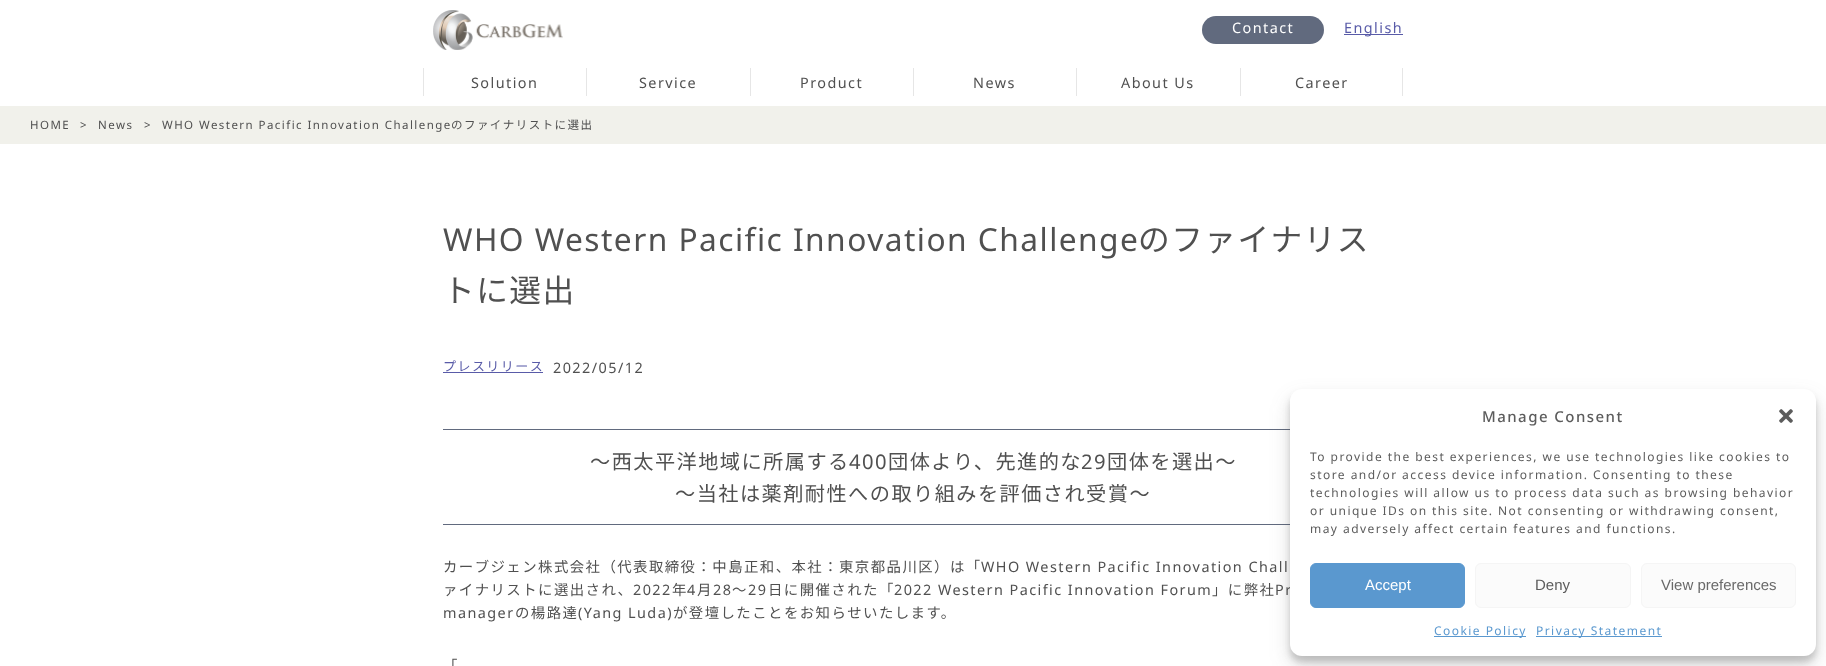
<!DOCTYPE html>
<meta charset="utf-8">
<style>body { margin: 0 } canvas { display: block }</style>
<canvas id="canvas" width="1826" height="666"></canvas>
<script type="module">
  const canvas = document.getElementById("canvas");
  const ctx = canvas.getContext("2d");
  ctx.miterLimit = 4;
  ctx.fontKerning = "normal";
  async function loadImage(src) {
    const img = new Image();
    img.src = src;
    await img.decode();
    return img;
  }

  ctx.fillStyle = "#ffffff";
  ctx.fillRect(0, 0, 1826, 666);
  ctx.drawImage(await loadImage("img1.png"), 433, 10, 130, 40);
  ctx.fillStyle = "#616a7e";
  ctx.beginPath();
  ctx.roundRect(1202, 16, 122, 28, 14);
  ctx.fill();
  ctx.letterSpacing = "1.45px";
  ctx.font = "14.4px Noto Sans";
  ctx.fillStyle = "#ffffff";
  ctx.fillText("Contact", 1232, 33);
  ctx.fillStyle = "#595ba8";
  ctx.fillRect(1344, 34, 59, 1);
  ctx.fillText("English", 1344, 33);
  ctx.fillStyle = "#e6e6e6";
  ctx.fillRect(423, 68, 1, 28);
  ctx.fillStyle = "#505050";
  ctx.fillText("Solution", 471, 88);
  ctx.fillStyle = "#e6e6e6";
  ctx.fillRect(586, 68, 1, 28);
  ctx.fillStyle = "#505050";
  ctx.fillText("Service", 639, 88);
  ctx.fillStyle = "#e6e6e6";
  ctx.fillRect(750, 68, 1, 28);
  ctx.fillStyle = "#505050";
  ctx.fillText("Product", 800, 88);
  ctx.fillStyle = "#e6e6e6";
  ctx.fillRect(913, 68, 1, 28);
  ctx.fillStyle = "#505050";
  ctx.fillText("News", 973, 88);
  ctx.fillStyle = "#e6e6e6";
  ctx.fillRect(1076, 68, 1, 28);
  ctx.fillStyle = "#505050";
  ctx.fillText("About Us", 1121, 88);
  ctx.fillStyle = "#e6e6e6";
  ctx.fillRect(1240, 68, 1, 28);
  ctx.fillStyle = "#505050";
  ctx.fillText("Career", 1295, 88);
  ctx.fillStyle = "#e6e6e6";
  ctx.fillRect(1402, 68, 1, 28);
  ctx.fillStyle = "#f1f1eb";
  ctx.fillRect(0, 106, 1826, 38);
  ctx.font = "11.5px Noto Sans";
  ctx.fillStyle = "#505050";
  ctx.fillText("HOME", 30, 129);
  ctx.fillText(">", 80, 129);
  ctx.fillText("News", 98, 129);
  ctx.fillText(">", 144, 129);
  ctx.fillText("WHO Western Pacific Innovation Challenge", 162, 129);
  ctx.font = "11.5px Noto Sans CJK JP";
  ctx.fillText("のファイナリストに選出", 451, 129);
  ctx.font = "31.7px Noto Sans";
  ctx.fillText("WHO Western Pacific Innovation Challenge", 443, 251);
  ctx.font = "31.7px Noto Sans CJK JP";
  ctx.fillText("のファイナリス", 1138, 251);
  ctx.fillText("トに選出", 443, 302);
  ctx.font = "13px Noto Sans CJK JP";
  ctx.fillStyle = "#595ba8";
  ctx.fillText("プレスリリース", 443, 371);
  ctx.fillRect(443, 372, 100, 1);
  ctx.font = "14.4px Noto Sans";
  ctx.fillStyle = "#505050";
  ctx.fillText("2022/05/12", 553, 373);
  ctx.fillStyle = "#616a7e";
  ctx.fillRect(443, 429, 847, 1);
  ctx.fillRect(443, 524, 847, 1);
  ctx.font = "20.2px Noto Sans CJK JP";
  ctx.fillStyle = "#505050";
  ctx.fillText("〜西太平洋地域に所属する", 590, 469);
  ctx.font = "20.2px Noto Sans";
  ctx.fillText("400", 849, 469);
  ctx.font = "20.2px Noto Sans CJK JP";
  ctx.fillText("団体より、先進的な", 888, 469);
  ctx.font = "20.2px Noto Sans";
  ctx.fillText("29", 1081, 469);
  ctx.font = "20.2px Noto Sans CJK JP";
  ctx.fillText("団体を選出〜", 1107, 469);
  ctx.fillText("〜当社は薬剤耐性への取り組みを評価され受賞〜", 675, 501);
  ctx.font = "14.4px Noto Sans CJK JP";
  ctx.fillText("カーブジェン株式会社（代表取締役：中島正和、本社：東京都品川区）は「", 443, 572);
  ctx.font = "14.4px Noto Sans";
  ctx.fillText("WHO Western Pacific Innovation Chall", 981, 572);
  ctx.font = "14.4px Noto Sans CJK JP";
  ctx.fillText("ァイナリストに選出され、", 443, 595);
  ctx.font = "14.4px Noto Sans";
  ctx.fillText("2022", 633, 595);
  ctx.font = "14.4px Noto Sans CJK JP";
  ctx.fillText("年", 672, 595);
  ctx.font = "14.4px Noto Sans";
  ctx.fillText("4", 687, 595);
  ctx.font = "14.4px Noto Sans CJK JP";
  ctx.fillText("月", 697, 595);
  ctx.font = "14.4px Noto Sans";
  ctx.fillText("28", 713, 595);
  ctx.font = "14.4px Noto Sans CJK JP";
  ctx.fillText("〜", 732, 595);
  ctx.font = "14.4px Noto Sans";
  ctx.fillText("29", 748, 595);
  ctx.font = "14.4px Noto Sans CJK JP";
  ctx.fillText("日に開催された「", 768, 595);
  ctx.font = "14.4px Noto Sans";
  ctx.fillText("2022 Western Pacific Innovation Forum", 894, 595);
  ctx.font = "14.4px Noto Sans CJK JP";
  ctx.fillText("」に弊社", 1212, 595);
  ctx.font = "14.4px Noto Sans";
  ctx.fillText("Pr", 1275, 595);
  ctx.fillText("manager", 443, 618);
  ctx.font = "14.4px Noto Sans CJK JP";
  ctx.fillText("の楊路達", 515, 618);
  ctx.font = "14.4px Noto Sans";
  ctx.fillText("(Yang Luda)", 578, 618);
  ctx.font = "14.4px Noto Sans CJK JP";
  ctx.fillText("が登壇したことをお知らせいたします。", 673, 618);
  ctx.fillText("「", 443, 671);
  ctx.fillStyle = "rgba(67, 67, 67, 0.23)";
  ctx.filter = "blur(3px)";
  ctx.beginPath();
  ctx.roundRect(1290, 395, 526, 267, 12);
  ctx.fill();
  ctx.filter = "none";
  ctx.fillStyle = "rgba(67, 67, 67, 0.19)";
  ctx.filter = "blur(10px)";
  ctx.beginPath();
  ctx.roundRect(1290, 399, 526, 267, 12);
  ctx.fill();
  ctx.filter = "none";
  ctx.fillStyle = "#ffffff";
  ctx.beginPath();
  ctx.roundRect(1290, 389, 526, 267, 12);
  ctx.fill();
  ctx.font = "500 15px Noto Sans";
  ctx.fillStyle = "#5c5c5c";
  ctx.fillText("Manage Consent", 1482, 422);
  ctx.drawImage(await loadImage("img2.png"), 1779, 409, 14, 14);
  ctx.font = "12px Noto Sans";
  ctx.fillText("To provide the best experiences, we use technologies like cookies to", 1310, 461);
  ctx.fillText("store and/or access device information. Consenting to these", 1310, 479);
  ctx.fillText("technologies will allow us to process data such as browsing behavior", 1310, 497);
  ctx.fillText("or unique IDs on this site. Not consenting or withdrawing consent,", 1310, 515);
  ctx.fillText("may adversely affect certain features and functions.", 1310, 533);
  ctx.fillStyle = "#5a98cf";
  ctx.beginPath();
  ctx.roundRect(1310.5, 563.5, 154, 44, 5.5);
  ctx.fill();
  ctx.strokeStyle = "#5a98cf";
  ctx.stroke();
  ctx.letterSpacing = "0px";
  ctx.font = "15px Liberation Sans";
  ctx.fillStyle = "#ffffff";
  ctx.fillText("Accept", 1365, 590);
  ctx.fillStyle = "#fbfbfb";
  ctx.beginPath();
  ctx.roundRect(1475.5, 563.5, 155, 44, 5.5);
  ctx.fill();
  ctx.strokeStyle = "#f5f5f5";
  ctx.stroke();
  ctx.fillStyle = "#5c5c5c";
  ctx.fillText("Deny", 1535, 590);
  ctx.fillStyle = "#fbfbfb";
  ctx.beginPath();
  ctx.roundRect(1641.5, 563.5, 154, 44, 5.5);
  ctx.fill();
  ctx.stroke();
  ctx.fillStyle = "#696969";
  ctx.fillText("View preferences", 1661, 590);
  ctx.fillStyle = "#5a98cf";
  ctx.fillRect(1434, 636, 92, 1);
  ctx.letterSpacing = "1.45px";
  ctx.font = "12px Noto Sans";
  ctx.fillText("Cookie Policy", 1434, 635);
  ctx.fillRect(1536, 636, 126, 1);
  ctx.fillText("Privacy Statement", 1536, 635);
</script>
